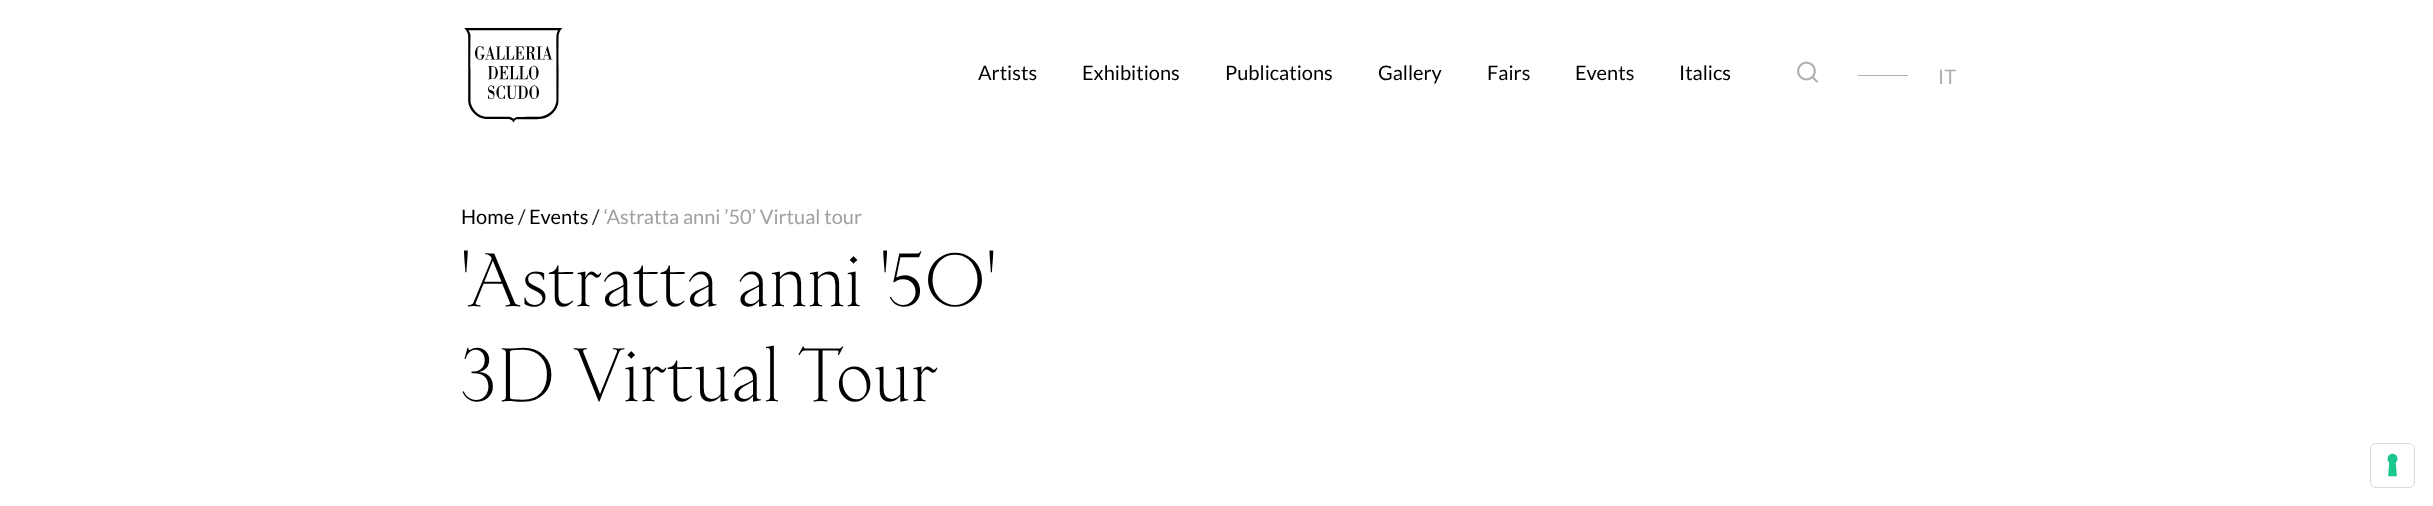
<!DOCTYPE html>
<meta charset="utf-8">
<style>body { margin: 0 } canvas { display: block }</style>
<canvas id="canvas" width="2433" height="506"></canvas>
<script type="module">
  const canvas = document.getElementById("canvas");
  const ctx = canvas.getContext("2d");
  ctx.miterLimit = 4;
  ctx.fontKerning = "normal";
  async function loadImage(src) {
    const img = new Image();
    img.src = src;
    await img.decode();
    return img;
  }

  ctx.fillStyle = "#ffffff";
  ctx.fillRect(0, 0, 2433, 506);
  ctx.drawImage(await loadImage("img1.png"), 464, 28, 99, 95);
  ctx.font = "20px Lato";
  ctx.fillStyle = "#000000";
  ctx.fillText("Artists", 978, 80);
  ctx.fillText("Exhibitions", 1082, 80);
  ctx.fillText("Publications", 1225, 80);
  ctx.fillText("Gallery", 1378, 80);
  ctx.fillText("Fairs", 1487, 80);
  ctx.fillText("Events", 1575, 80);
  ctx.fillText("Italics", 1679, 80);
  ctx.drawImage(await loadImage("img2.png"), 1797, 61, 21, 22);
  ctx.fillStyle = "#afafaf";
  ctx.fillRect(1858, 75, 50, 1);
  ctx.fillText("IT", 1938, 84);
  ctx.fillStyle = "#000000";
  ctx.fillText("Home", 461, 224);
  ctx.fillStyle = "#222222";
  ctx.fillText("/", 518, 224);
  ctx.fillStyle = "#000000";
  ctx.fillText("Events", 529, 224);
  ctx.fillStyle = "#222222";
  ctx.fillText("/", 592, 224);
  ctx.fillStyle = "#a0a0a0";
  ctx.fillText("‘Astratta anni ’50’ Virtual tour", 604, 224);
  ctx.letterSpacing = "0.6px";
  ctx.font = "75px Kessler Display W";
  ctx.fillStyle = "#000000";
  ctx.fillText("'Astratta anni '50'", 461, 306);
  ctx.fillText("3D Virtual Tour", 461, 401);
  ctx.beginPath();
  ctx.roundRect(2370.5, 443.5, 44, 44, 5.5);
  ctx.strokeStyle = "#d9d9d9";
  ctx.stroke();
  ctx.fillStyle = "#ffffff";
  ctx.beginPath();
  ctx.roundRect(2371, 444, 43, 42, 5);
  ctx.fill();
  ctx.drawImage(await loadImage("img3.png"), 2387, 453, 11, 24);
</script>
